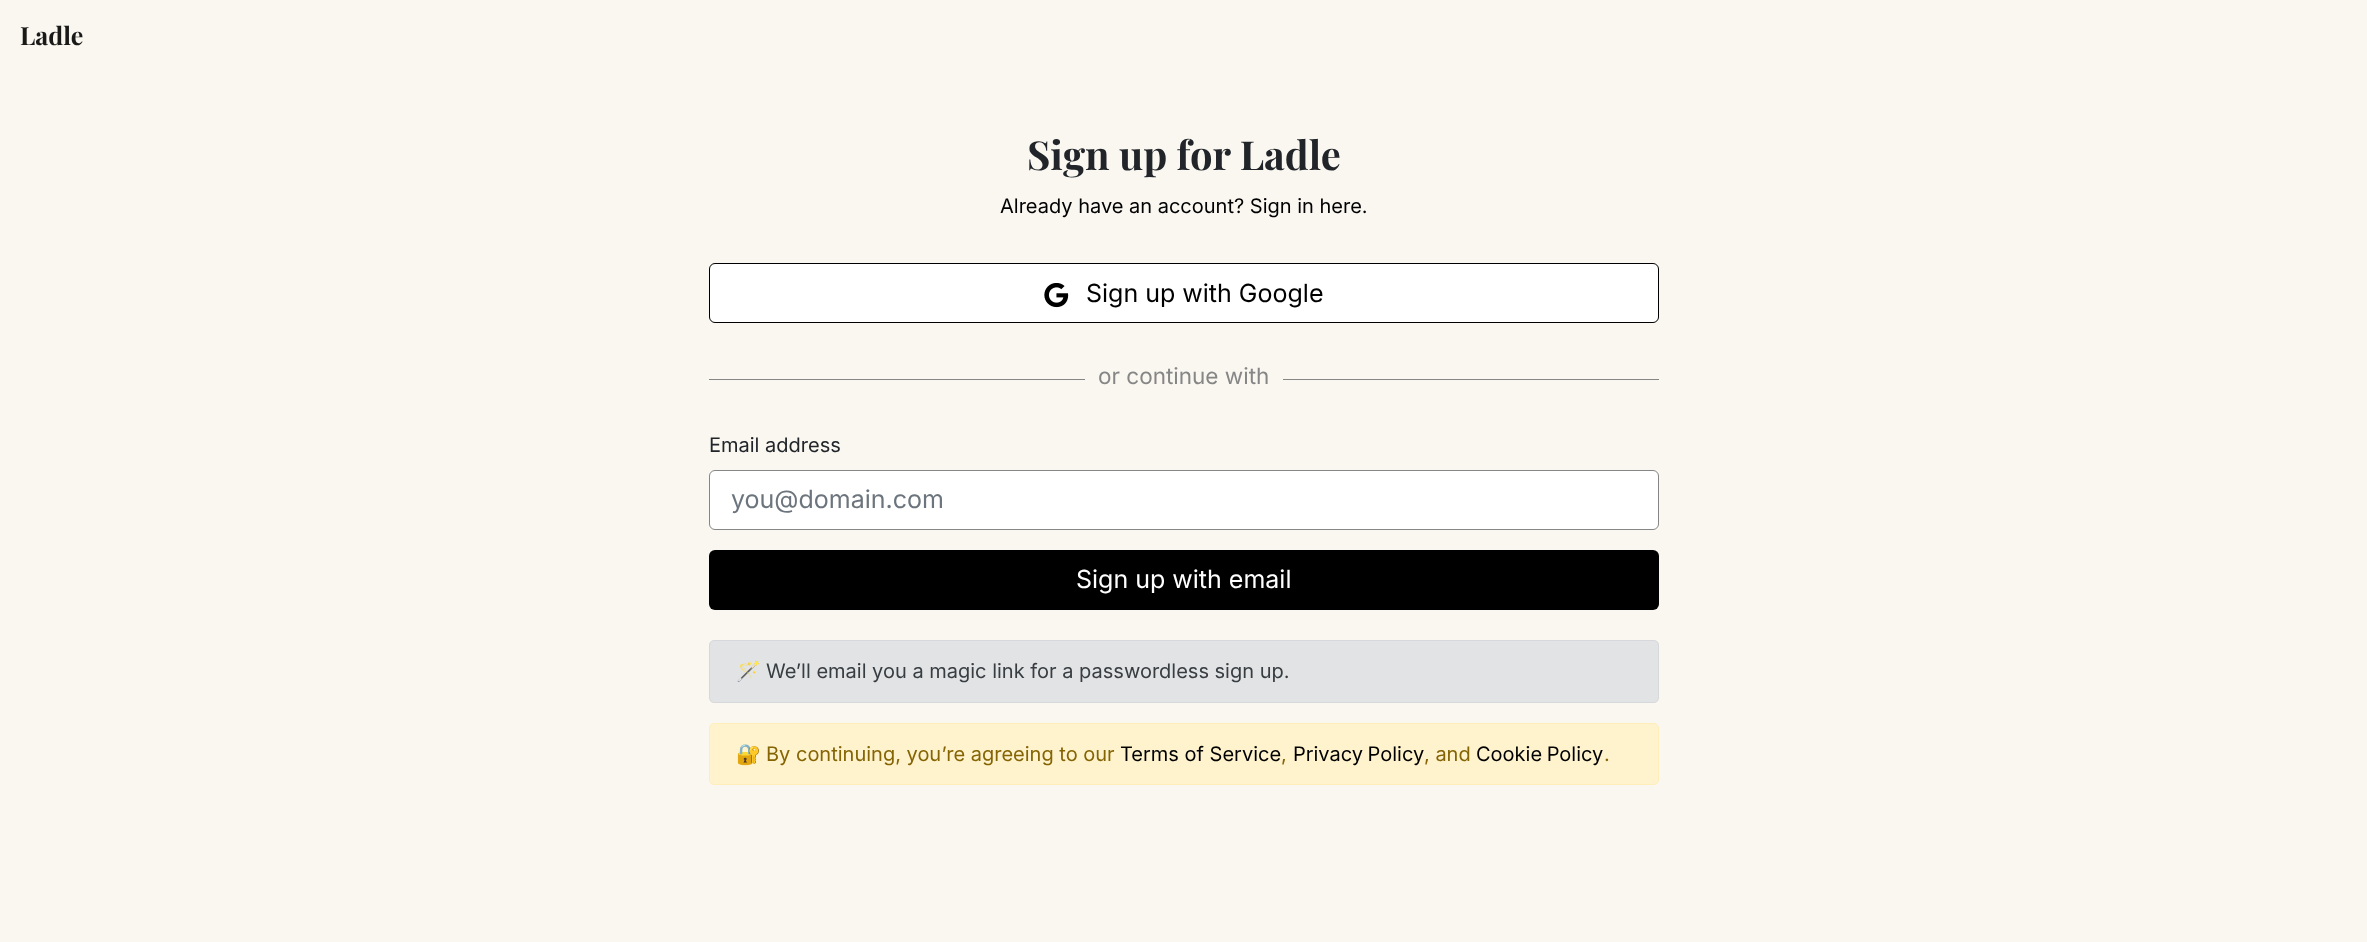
<!DOCTYPE html>
<meta charset="utf-8">
<style>body { margin: 0 } canvas { display: block }</style>
<canvas id="canvas" width="2367" height="942"></canvas>
<script type="module">
  const canvas = document.getElementById("canvas");
  const ctx = canvas.getContext("2d");
  ctx.miterLimit = 4;
  ctx.fontKerning = "normal";
  async function loadImage(src) {
    const img = new Image();
    img.src = src;
    await img.decode();
    return img;
  }

  ctx.fillStyle = "#faf7f1";
  ctx.fillRect(0, 0, 2367, 942);
  ctx.font = "bold 25px Playfair Display";
  ctx.fillStyle = "#191918";
  ctx.fillText("Ladle", 20, 45);
  ctx.font = "bold 40px Playfair Display";
  ctx.fillStyle = "#212529";
  ctx.fillText("Sign up for Ladle", 1027, 170);
  ctx.font = "20px Inter";
  ctx.fillStyle = "#000000";
  ctx.fillText("Already have an account? Sign in here.", 1000, 213);
  ctx.fillStyle = "#ffffff";
  ctx.beginPath();
  ctx.roundRect(709.5, 263.5, 949, 59, 5.5);
  ctx.fill();
  ctx.strokeStyle = "#000000";
  ctx.stroke();
  ctx.drawImage(await loadImage("img1.png"), 1044, 283, 25, 25);
  ctx.font = "25px Inter";
  ctx.fillStyle = "#000000";
  ctx.fillText("Sign up with Google", 1086, 302);
  ctx.fillStyle = "#868686";
  ctx.fillRect(709, 379, 950, 1);
  ctx.fillStyle = "#faf7f1";
  ctx.fillRect(1085, 379, 198, 1);
  ctx.font = "22.5px Inter";
  ctx.fillStyle = "#868686";
  ctx.fillText("or continue with", 1098, 384);
  ctx.font = "20px Inter";
  ctx.fillStyle = "#212529";
  ctx.fillText("Email address", 709, 452);
  ctx.fillStyle = "#ffffff";
  ctx.beginPath();
  ctx.roundRect(709.5, 470.5, 949, 59, 5.5);
  ctx.fill();
  ctx.strokeStyle = "#868686";
  ctx.stroke();
  ctx.font = "25px Inter";
  ctx.fillStyle = "#6c757d";
  ctx.fillText("you@domain.com", 731, 508);
  ctx.fillStyle = "#000000";
  ctx.beginPath();
  ctx.roundRect(709, 550, 950, 60, 6);
  ctx.fill();
  ctx.fillStyle = "#ffffff";
  ctx.fillText("Sign up with email", 1076, 588);
  ctx.fillStyle = "#e2e3e5";
  ctx.beginPath();
  ctx.roundRect(709.5, 640.5, 949, 62, 4.5);
  ctx.fill();
  ctx.strokeStyle = "#d6d8db";
  ctx.stroke();
  ctx.font = "20px Noto Color Emoji";
  ctx.fillStyle = "#383d41";
  ctx.fillText("🪄", 736, 678);
  ctx.font = "20px Inter";
  ctx.fillText("We’ll email you a magic link for a passwordless sign up.", 766, 678);
  ctx.fillStyle = "#fff3cd";
  ctx.beginPath();
  ctx.roundRect(709.5, 723.5, 949, 61, 4.5);
  ctx.fill();
  ctx.strokeStyle = "#ffeeba";
  ctx.stroke();
  ctx.font = "20px Noto Color Emoji";
  ctx.fillStyle = "#856404";
  ctx.fillText("🔐", 736, 761);
  ctx.font = "20px Inter";
  ctx.fillText("By continuing, you’re agreeing to our", 766, 761);
  ctx.fillStyle = "#000000";
  ctx.fillText("Terms of Service", 1120, 761);
  ctx.fillStyle = "#856404";
  ctx.fillText(",", 1281, 761);
  ctx.wordSpacing = "-1px";
  ctx.fillStyle = "#000000";
  ctx.fillText("Privacy Policy", 1293, 761);
  ctx.wordSpacing = "0px";
  ctx.fillStyle = "#856404";
  ctx.fillText(", and", 1424, 761);
  ctx.wordSpacing = "-1px";
  ctx.fillStyle = "#000000";
  ctx.fillText("Cookie Policy", 1476, 761);
  ctx.wordSpacing = "0px";
  ctx.fillStyle = "#856404";
  ctx.fillText(".", 1604, 761);
</script>
